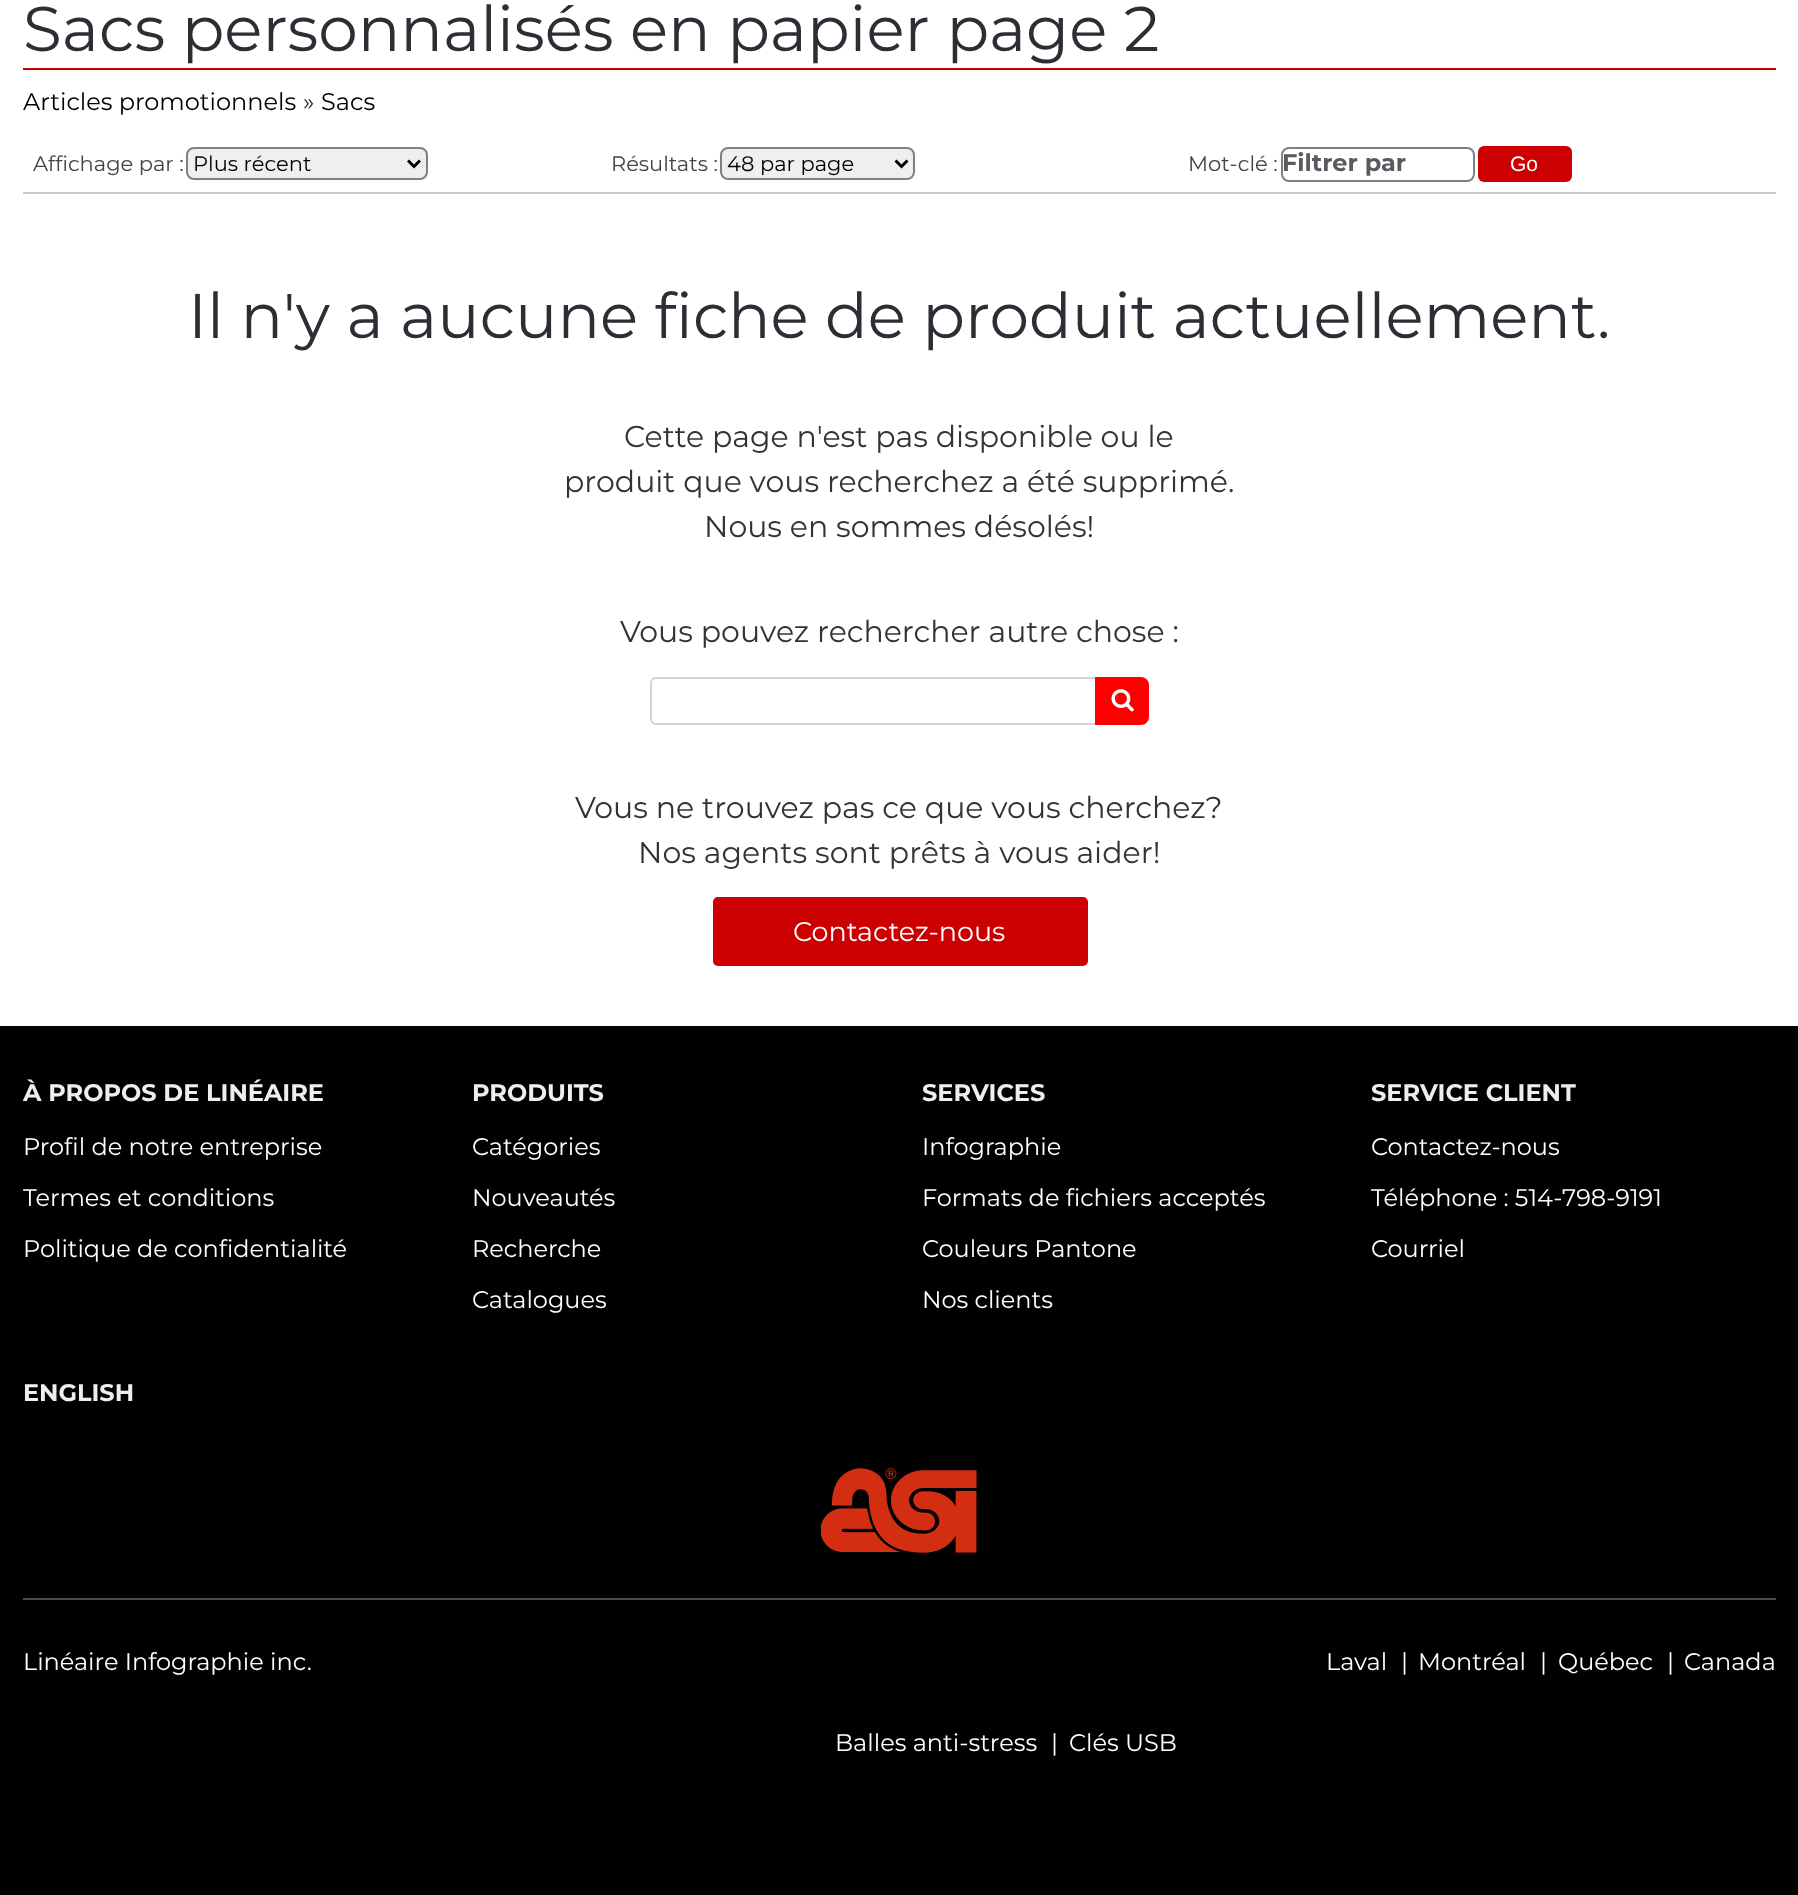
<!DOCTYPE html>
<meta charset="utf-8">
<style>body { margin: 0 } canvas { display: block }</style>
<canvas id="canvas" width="1798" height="1895"></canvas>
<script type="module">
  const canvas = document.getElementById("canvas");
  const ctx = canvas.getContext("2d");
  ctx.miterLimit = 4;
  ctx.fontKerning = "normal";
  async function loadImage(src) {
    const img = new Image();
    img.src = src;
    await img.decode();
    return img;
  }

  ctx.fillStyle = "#ffffff";
  ctx.fillRect(0, 0, 1798, 1895);
  ctx.fillStyle = "#cc0000";
  ctx.fillRect(23, 68, 1753, 2);
  ctx.font = "63px Montserrat";
  ctx.fillStyle = "#2c2e35";
  ctx.fillText("Sacs personnalisés en papier page 2", 23, 51);
  ctx.font = "24px Montserrat";
  ctx.fillStyle = "#000000";
  ctx.fillText("Articles promotionnels", 23, 110);
  ctx.fillStyle = "#2c2e35";
  ctx.fillText("»", 303, 110);
  ctx.fillStyle = "#000000";
  ctx.fillText("Sacs", 321, 110);
  ctx.fillStyle = "#cccccc";
  ctx.fillRect(23, 192, 1753, 2);
  ctx.font = "21px Montserrat";
  ctx.fillStyle = "#444444";
  ctx.fillText("Affichage par :", 33, 171);
  ctx.fillStyle = "#efefef";
  ctx.beginPath();
  ctx.roundRect(187, 148, 240, 31, 7);
  ctx.fill();
  ctx.strokeStyle = "#808080";
  ctx.lineWidth = 2;
  ctx.stroke();
  ctx.beginPath();
  ctx.moveTo(408, 160.5);
  ctx.lineTo(414, 166.5);
  ctx.lineTo(420, 160.5);
  ctx.strokeStyle = "#000000";
  ctx.lineWidth = 3;
  ctx.stroke();
  ctx.fillStyle = "#000000";
  ctx.fillText("Plus récent", 193, 171);
  ctx.fillStyle = "#444444";
  ctx.fillText("Résultats :", 611, 171);
  ctx.fillStyle = "#efefef";
  ctx.beginPath();
  ctx.roundRect(721, 148, 193, 31, 7);
  ctx.fill();
  ctx.strokeStyle = "#808080";
  ctx.lineWidth = 2;
  ctx.stroke();
  ctx.beginPath();
  ctx.moveTo(895.5, 160.5);
  ctx.lineTo(901.5, 166.5);
  ctx.lineTo(907.5, 160.5);
  ctx.strokeStyle = "#000000";
  ctx.lineWidth = 3;
  ctx.stroke();
  ctx.fillStyle = "#000000";
  ctx.fillText("48 par page", 727, 171);
  ctx.fillStyle = "#444444";
  ctx.fillText("Mot-clé :", 1188, 171);
  ctx.beginPath();
  ctx.roundRect(1282, 148, 192, 33, 7);
  ctx.strokeStyle = "#808080";
  ctx.lineWidth = 2;
  ctx.stroke();
  ctx.font = "bold 24px Montserrat";
  ctx.fillStyle = "#595b61";
  ctx.fillText("Filtrer par", 1282, 171);
  ctx.fillStyle = "#cc0000";
  ctx.beginPath();
  ctx.roundRect(1478, 146, 94, 36, 6);
  ctx.fill();
  ctx.font = "21px Liberation Sans";
  ctx.fillStyle = "#ffffff";
  ctx.fillText("Go", 1510, 171);
  ctx.font = "63px Montserrat";
  ctx.fillStyle = "#2c2e35";
  ctx.fillText("Il n'y a aucune fiche de produit actuellement.", 188, 338);
  ctx.font = "30px Montserrat";
  ctx.fillStyle = "#333333";
  ctx.fillText("Cette page n'est pas disponible ou le", 624, 447);
  ctx.fillText("produit que vous recherchez a été supprimé.", 564, 492);
  ctx.fillText("Nous en sommes désolés!", 704, 537);
  ctx.fillText("Vous pouvez rechercher autre chose :", 620, 642);
  ctx.beginPath();
  ctx.roundRect(651, 678, 448, 46, 5);
  ctx.strokeStyle = "#ced4da";
  ctx.stroke();
  ctx.fillStyle = "#ff0000";
  ctx.beginPath();
  ctx.roundRect(1096, 678, 52, 46, [0, 7, 7, 0]);
  ctx.fill();
  ctx.strokeStyle = "#ff0000";
  ctx.stroke();
  ctx.drawImage(await loadImage("img1.png"), 1111, 689, 23, 23);
  ctx.fillStyle = "#333333";
  ctx.fillText("Vous ne trouvez pas ce que vous cherchez?", 575, 818);
  ctx.fillText("Nos agents sont prêts à vous aider!", 638, 863);
  ctx.fillStyle = "#cc0000";
  ctx.beginPath();
  ctx.roundRect(713, 897, 375, 69, 5);
  ctx.fill();
  ctx.font = "27px Montserrat";
  ctx.fillStyle = "#ffffff";
  ctx.fillText("Contactez-nous", 793, 941);
  ctx.fillStyle = "#000000";
  ctx.fillRect(0, 1026, 1798, 869);
  ctx.font = "bold 24px Montserrat";
  ctx.fillStyle = "#eeeeee";
  ctx.fillText("À PROPOS DE LINÉAIRE", 23, 1101);
  ctx.font = "24px Montserrat";
  ctx.fillStyle = "#ffffff";
  ctx.fillText("Profil de notre entreprise", 23, 1155);
  ctx.fillText("Termes et conditions", 23, 1206);
  ctx.fillText("Politique de confidentialité", 23, 1257);
  ctx.font = "bold 24px Montserrat";
  ctx.fillStyle = "#eeeeee";
  ctx.fillText("PRODUITS", 472, 1101);
  ctx.font = "24px Montserrat";
  ctx.fillStyle = "#ffffff";
  ctx.fillText("Catégories", 472, 1155);
  ctx.fillText("Nouveautés", 472, 1206);
  ctx.fillText("Recherche", 472, 1257);
  ctx.fillText("Catalogues", 472, 1308);
  ctx.font = "bold 24px Montserrat";
  ctx.fillStyle = "#eeeeee";
  ctx.fillText("SERVICES", 922, 1101);
  ctx.font = "24px Montserrat";
  ctx.fillStyle = "#ffffff";
  ctx.fillText("Infographie", 922, 1155);
  ctx.fillText("Formats de fichiers acceptés", 922, 1206);
  ctx.fillText("Couleurs Pantone", 922, 1257);
  ctx.fillText("Nos clients", 922, 1308);
  ctx.font = "bold 24px Montserrat";
  ctx.fillStyle = "#eeeeee";
  ctx.fillText("SERVICE CLIENT", 1371, 1101);
  ctx.font = "24px Montserrat";
  ctx.fillStyle = "#ffffff";
  ctx.fillText("Contactez-nous", 1371, 1155);
  ctx.fillText("Téléphone : 514-798-9191", 1371, 1206);
  ctx.fillText("Courriel", 1371, 1257);
  ctx.font = "bold 24px Montserrat";
  ctx.fillStyle = "#eeeeee";
  ctx.fillText("ENGLISH", 23, 1401);
  ctx.drawImage(await loadImage("img2.png"), 821, 1468, 156, 85);
  ctx.fillStyle = "#4d4d4d";
  ctx.fillRect(23, 1598, 1753, 2);
  ctx.font = "24px Montserrat";
  ctx.fillStyle = "#ffffff";
  ctx.fillText("Linéaire Infographie inc.", 23, 1670);
  ctx.fillText("Laval", 1326, 1670);
  ctx.fillText("|", 1401, 1670);
  ctx.fillText("Montréal", 1418, 1670);
  ctx.fillText("|", 1540, 1670);
  ctx.fillText("Québec", 1558, 1670);
  ctx.fillText("|", 1667, 1670);
  ctx.fillText("Canada", 1684, 1670);
  ctx.fillText("Balles anti-stress", 835, 1751);
  ctx.fillText("|", 1051, 1751);
  ctx.fillText("Clés USB", 1069, 1751);
</script>
